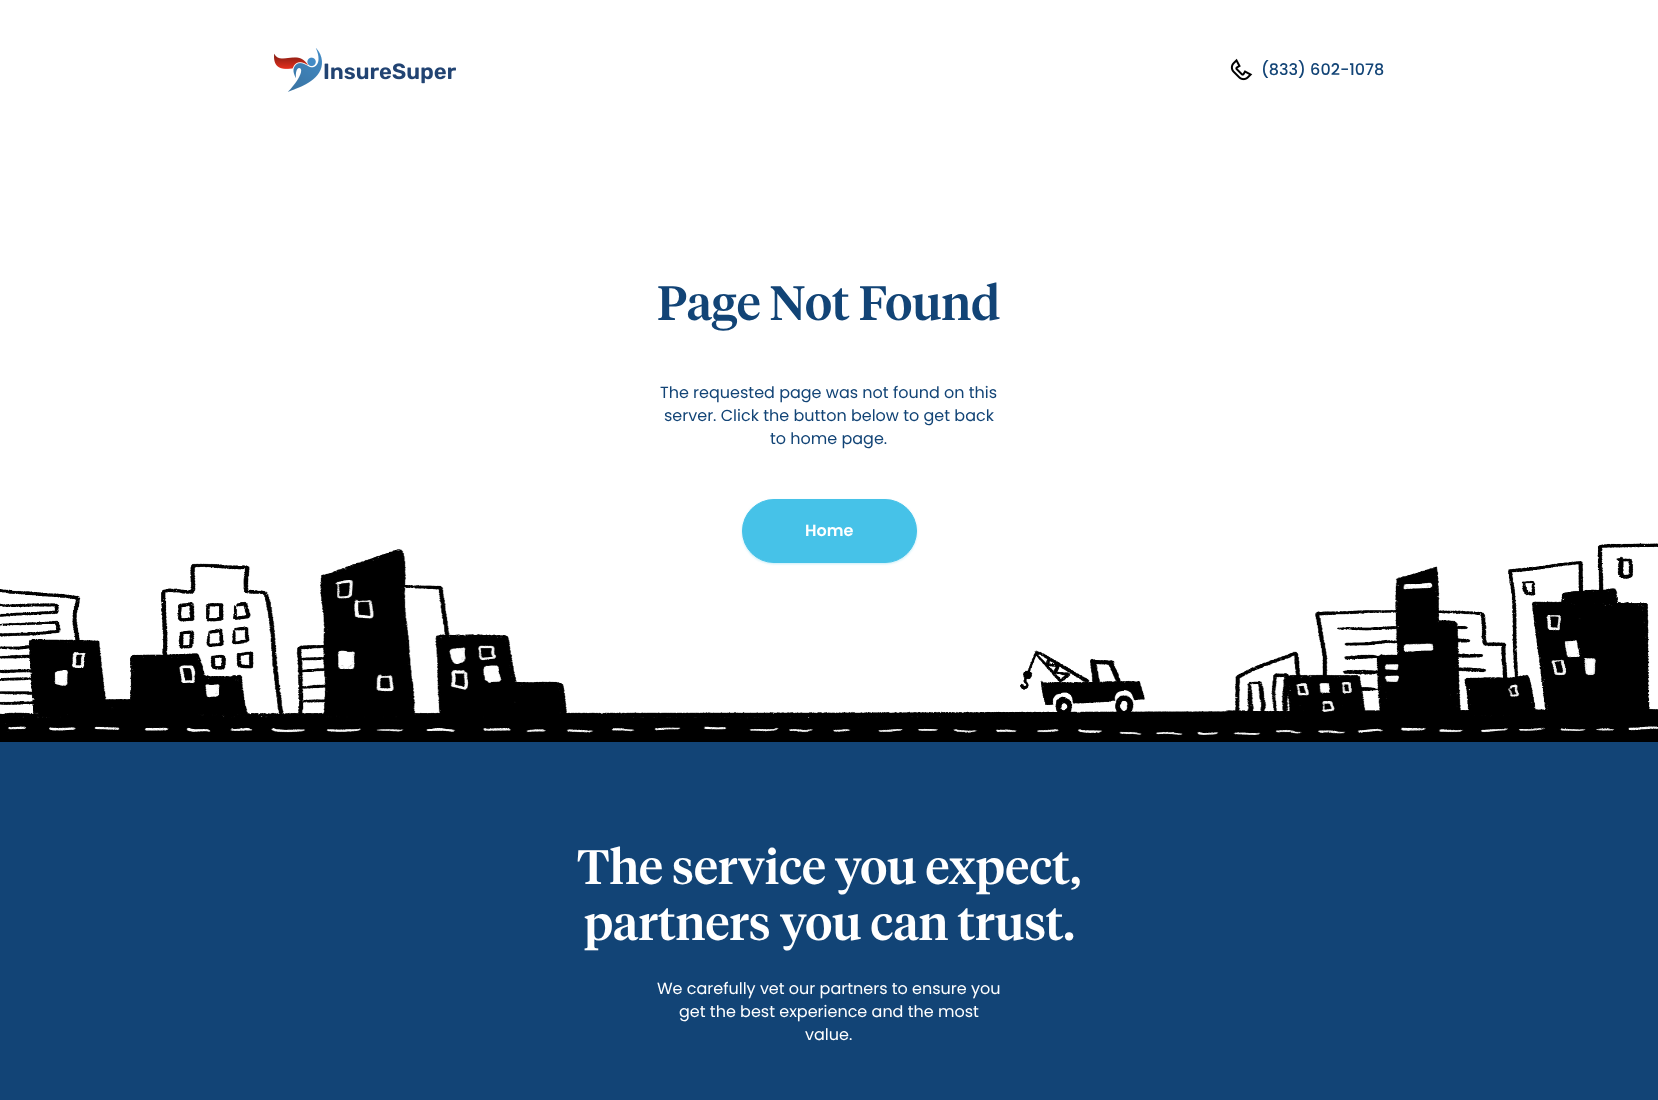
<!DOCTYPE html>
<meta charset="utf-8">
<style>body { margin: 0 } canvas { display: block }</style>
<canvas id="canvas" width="1658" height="1100"></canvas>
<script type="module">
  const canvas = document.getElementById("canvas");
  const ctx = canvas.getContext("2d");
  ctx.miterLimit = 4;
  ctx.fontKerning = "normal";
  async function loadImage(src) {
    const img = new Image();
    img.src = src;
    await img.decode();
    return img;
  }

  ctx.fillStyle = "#ffffff";
  ctx.fillRect(0, 0, 1658, 1100);
  ctx.drawImage(await loadImage("img1.png"), 274, 48, 182, 44);
  ctx.drawImage(await loadImage("img2.png"), 1230, 58, 23, 23);
  ctx.font = "500 16px Poppins";
  ctx.fillStyle = "#124476";
  ctx.fillText("(833) 602-1078", 1261, 75);
  ctx.font = "500 48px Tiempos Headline";
  ctx.fillText("Page Not Found", 657, 320);
  ctx.font = "16px Poppins";
  ctx.fillText("The requested page was not found on this", 660, 398);
  ctx.fillText("server. Click the button below to get back", 664, 421);
  ctx.fillText("to home page.", 770, 444);
  ctx.drawImage(await loadImage("img3.png"), 0, 543, 1658, 199);
  ctx.fillStyle = "rgba(70, 194, 232, 0.3)";
  ctx.filter = "blur(1px)";
  ctx.beginPath();
  ctx.roundRect(742, 500, 175, 64, 32);
  ctx.fill();
  ctx.filter = "none";
  ctx.fillStyle = "#46c2e8";
  ctx.beginPath();
  ctx.roundRect(742.5, 499.5, 174, 63, 31.5);
  ctx.fill();
  ctx.strokeStyle = "#46c2e8";
  ctx.stroke();
  ctx.font = "600 16px Poppins";
  ctx.fillStyle = "#ffffff";
  ctx.fillText("Home", 805, 536);
  ctx.fillStyle = "#124476";
  ctx.fillRect(0, 742, 1658, 358);
  ctx.font = "500 48px Tiempos Headline";
  ctx.fillStyle = "#ffffff";
  ctx.fillText("The service you expect,", 577, 884);
  ctx.fillText("partners you can trust.", 584, 940);
  ctx.font = "16px Poppins";
  ctx.fillText("We carefully vet our partners to ensure you", 657, 994);
  ctx.fillText("get the best experience and the most", 679, 1017);
  ctx.fillText("value.", 805, 1040);
</script>
